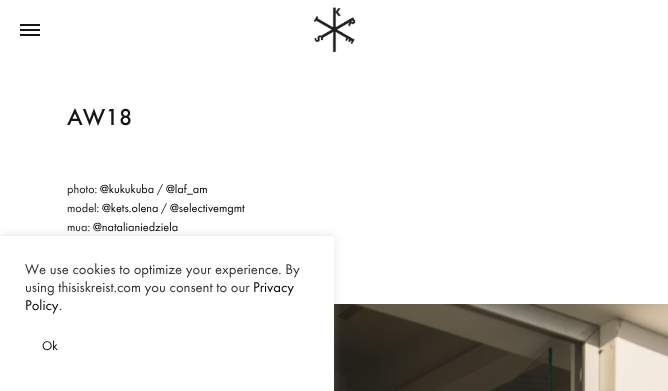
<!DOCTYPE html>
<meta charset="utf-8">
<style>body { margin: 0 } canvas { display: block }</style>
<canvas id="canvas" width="668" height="391"></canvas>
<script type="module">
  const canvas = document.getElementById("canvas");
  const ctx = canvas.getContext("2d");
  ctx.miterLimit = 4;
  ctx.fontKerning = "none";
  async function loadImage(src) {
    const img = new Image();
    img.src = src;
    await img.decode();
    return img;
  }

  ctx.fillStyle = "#ffffff";
  ctx.fillRect(0, 0, 668, 391);
  ctx.fillStyle = "#161619";
  ctx.fillRect(20, 29, 20, 2);
  ctx.fillRect(20, 24, 20, 2);
  ctx.fillRect(20, 34, 20, 2);
  ctx.drawImage(await loadImage("img1.png"), 313, 7, 43, 45);
  ctx.font = "500 24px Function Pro";
  ctx.fillText("AW18", 67, 125);
  ctx.font = "12.25px Function Pro";
  ctx.fillText("photo:", 67, 193);
  ctx.fillStyle = "#000000";
  ctx.fillText("@kukukuba", 100, 193);
  ctx.fillStyle = "#161619";
  ctx.fillText("/", 157, 193);
  ctx.fillStyle = "#000000";
  ctx.fillText("@laf_am", 166, 193);
  ctx.fillStyle = "#161619";
  ctx.fillText("model:", 67, 212);
  ctx.fillStyle = "#000000";
  ctx.fillText("@kets.olena", 102, 212);
  ctx.fillStyle = "#161619";
  ctx.fillText("/", 161, 212);
  ctx.fillStyle = "#000000";
  ctx.fillText("@selectivemgmt", 170, 212);
  ctx.fillStyle = "#161619";
  ctx.fillText("mua:", 67, 231);
  ctx.fillStyle = "#000000";
  ctx.fillText("@natalianiedziela", 93, 231);
  ctx.drawImage(await loadImage("img2.png"), 334, 304, 334, 87);
  ctx.fillStyle = "rgba(172, 171, 171, 0.3)";
  ctx.filter = "blur(5px)";
  ctx.beginPath();
  ctx.rect(0, 235, 334, 155);
  ctx.fill();
  ctx.filter = "none";
  ctx.fillStyle = "#ffffff";
  ctx.fillRect(0, 236, 334, 155);
  ctx.font = "14.7px Function Pro";
  ctx.fillStyle = "#333333";
  ctx.fillText("We use cookies to optimize your experience. By", 25, 274);
  ctx.fillText("using thisiskreist.com you consent to our", 25, 292);
  ctx.fillStyle = "#000000";
  ctx.fillText("Privacy", 253, 292);
  ctx.fillText("Policy", 25, 310);
  ctx.fillStyle = "#333333";
  ctx.fillText(".", 59, 310);
  ctx.font = "13px Function Pro";
  ctx.fillStyle = "#000000";
  ctx.fillText("Ok", 42, 350);
</script>
